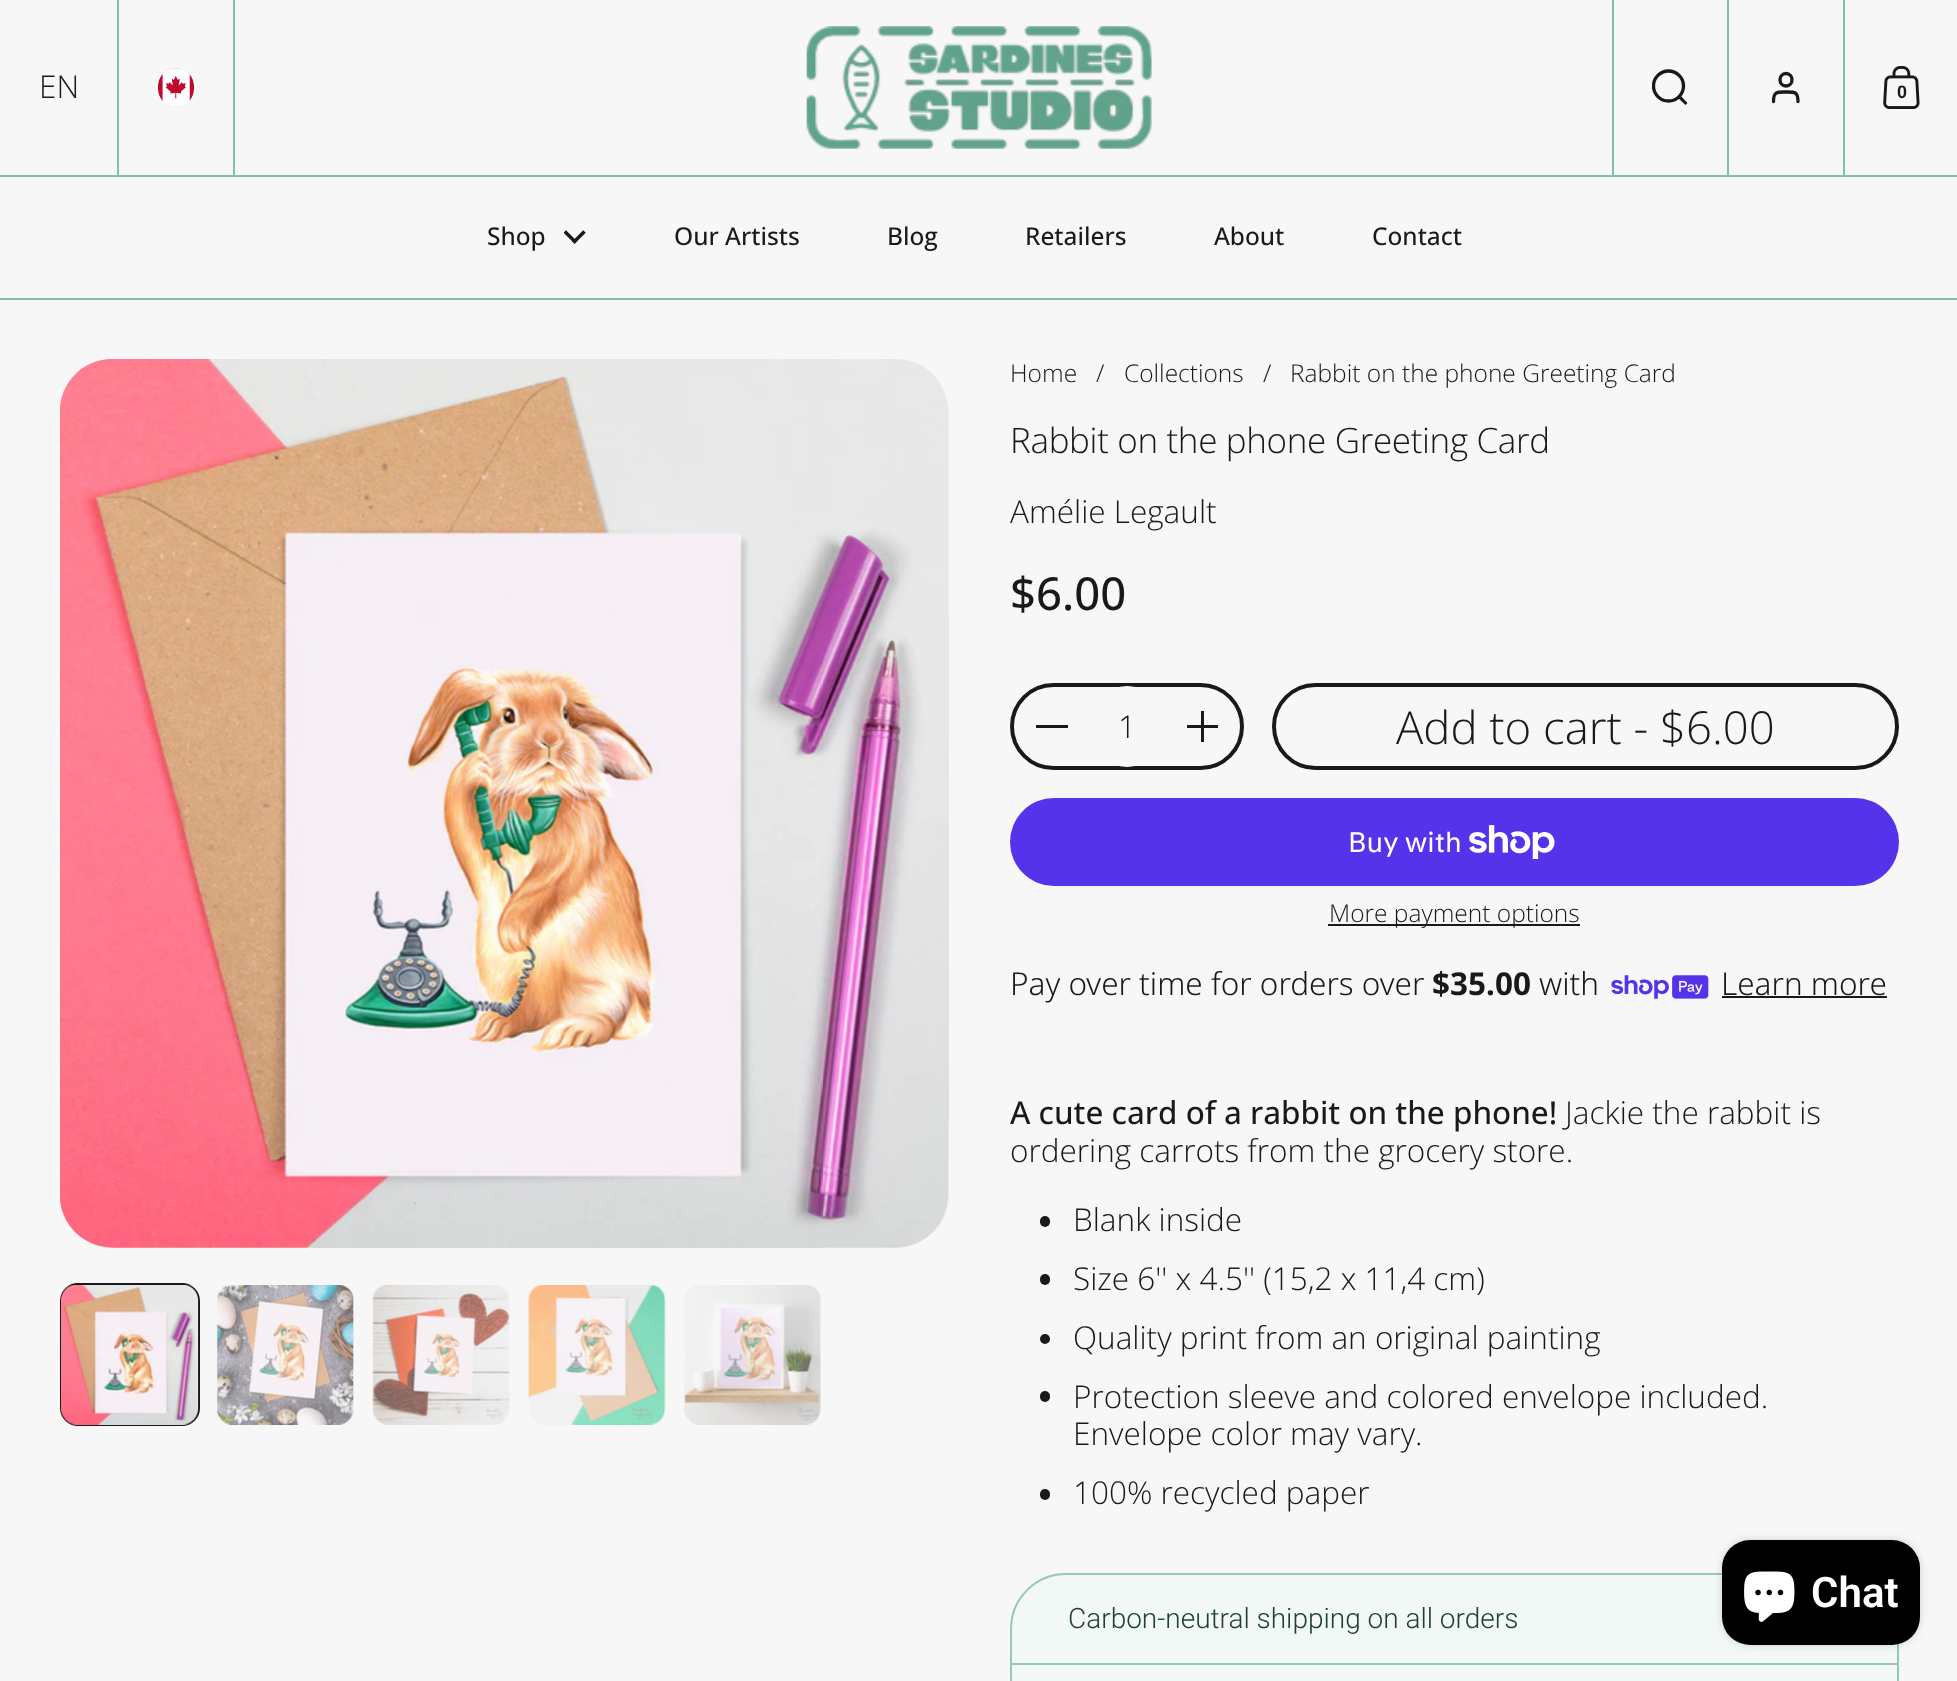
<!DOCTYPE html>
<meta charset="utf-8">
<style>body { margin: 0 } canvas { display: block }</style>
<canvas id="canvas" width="1957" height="1681"></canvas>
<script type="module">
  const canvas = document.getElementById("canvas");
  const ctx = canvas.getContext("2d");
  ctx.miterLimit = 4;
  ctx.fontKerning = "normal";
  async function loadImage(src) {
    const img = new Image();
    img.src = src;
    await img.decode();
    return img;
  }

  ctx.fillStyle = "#f7f7f7";
  ctx.fillRect(0, 0, 1957, 1681);
  ctx.drawImage(await loadImage("img1.png"), 806, 26, 346, 123);
  ctx.fillStyle = "#7ec3a9";
  ctx.fillRect(0, 175, 1957, 2);
  ctx.fillRect(117, 0, 2, 175);
  ctx.font = "300 31.5px Open Sans";
  ctx.fillStyle = "#191919";
  ctx.fillText("EN", 39, 98);
  ctx.fillStyle = "#7ec3a9";
  ctx.fillRect(233, 0, 2, 175);
  ctx.fillStyle = "#e5e5e5";
  ctx.beginPath();
  ctx.roundRect(158, 68, 36, 39, 18);
  ctx.fill();
  ctx.drawImage(await loadImage("img2.png"), 158, 69, 36, 38);
  ctx.fillStyle = "#7ec3a9";
  ctx.fillRect(1612, 0, 2, 175);
  ctx.save();
  ctx.beginPath();
  ctx.rect(1652, 65, 37, 45);
  ctx.clip();
  ctx.beginPath();
  ctx.arc(1668.5, 86, 15, 0, Math.PI * 2);
  ctx.strokeStyle = "#191919";
  ctx.lineWidth = 3.3;
  ctx.stroke();
  ctx.restore();
  ctx.fillStyle = "#191919";
  ctx.beginPath();
  ctx.moveTo(1677.5, 97.5);
  ctx.lineTo(1680, 95);
  ctx.lineTo(1687.5, 103);
  ctx.lineTo(1685.5, 105);
  ctx.closePath();
  ctx.fill();
  ctx.fillStyle = "#7ec3a9";
  ctx.fillRect(1727, 0, 2, 175);
  ctx.beginPath();
  ctx.moveTo(1798, 101.5);
  ctx.bezierCurveTo(1798, 91.5, 1794.5, 92, 1786, 92);
  ctx.bezierCurveTo(1777, 92, 1773.5, 91.5, 1773.5, 101.5);
  ctx.moveTo(1786, 86);
  ctx.bezierCurveTo(1794, 86, 1794, 73.5, 1786, 73.5);
  ctx.bezierCurveTo(1778, 73.5, 1778, 86, 1786, 86);
  ctx.closePath();
  ctx.strokeStyle = "#191919";
  ctx.lineWidth = 3.3;
  ctx.lineCap = "round";
  ctx.lineJoin = "round";
  ctx.stroke();
  ctx.fillRect(1843, 0, 2, 175);
  ctx.drawImage(await loadImage("img3.png"), 1883, 66, 37, 43);
  ctx.font = "bold 18px Liberation Sans";
  ctx.fillStyle = "#191919";
  ctx.fillText("0", 1897, 98);
  ctx.font = "500 24.5px Open Sans";
  ctx.fillText("Shop", 487, 245);
  ctx.drawImage(await loadImage("img4.png"), 564, 230, 22, 14);
  ctx.fillText("Our Artists", 674, 245);
  ctx.fillText("Blog", 887, 245);
  ctx.fillText("Retailers", 1025, 245);
  ctx.fillText("About", 1214, 245);
  ctx.fillText("Contact", 1372, 245);
  ctx.fillStyle = "#7ec3a9";
  ctx.fillRect(0, 298, 1957, 2);
  ctx.drawImage(await loadImage("img5.png"), 60, 359, 889, 889);
  ctx.beginPath();
  ctx.roundRect(61, 1284, 138, 141, 17);
  ctx.lineWidth = 2;
  ctx.lineJoin = "miter";
  ctx.stroke();
  ctx.drawImage(await loadImage("img6.png"), 61, 1285, 138, 140);
  ctx.drawImage(await loadImage("img7.png"), 216, 1285, 138, 140);
  ctx.drawImage(await loadImage("img8.png"), 372, 1285, 138, 140);
  ctx.drawImage(await loadImage("img9.png"), 528, 1285, 138, 140);
  ctx.drawImage(await loadImage("img10.png"), 684, 1285, 137, 140);
  ctx.font = "300 24.5px Open Sans";
  ctx.fillStyle = "#191919";
  ctx.fillText("Home", 1010, 382);
  ctx.fillText("/", 1096, 382);
  ctx.fillText("Collections", 1124, 382);
  ctx.fillText("/", 1263, 382);
  ctx.fillText("Rabbit on the phone Greeting Card", 1290, 382);
  ctx.letterSpacing = "-0.35px";
  ctx.font = "300 35px Open Sans";
  ctx.fillText("Rabbit on the phone Greeting Card", 1010, 453);
  ctx.letterSpacing = "0px";
  ctx.font = "300 31.5px Open Sans";
  ctx.fillText("Amélie Legault", 1010, 523);
  ctx.font = "500 45.5px Open Sans";
  ctx.fillText("$6.00", 1010, 610);
  ctx.beginPath();
  ctx.roundRect(1012, 685, 230, 83, 41.5);
  ctx.lineWidth = 4;
  ctx.stroke();
  ctx.fillRect(1036, 725, 32, 3);
  ctx.fillStyle = "#f7f7f7";
  ctx.beginPath();
  ctx.roundRect(1092, 686, 70, 81, 35);
  ctx.fill();
  ctx.font = "300 31.5px Open Sans";
  ctx.fillStyle = "#191919";
  ctx.fillText("1", 1118, 738);
  ctx.fillRect(1187, 725, 17, 3);
  ctx.fillRect(1201, 725, 3, 17);
  ctx.fillRect(1201, 725, 17, 3);
  ctx.fillRect(1201, 711, 3, 17);
  ctx.beginPath();
  ctx.roundRect(1274, 685, 623, 83, 41.5);
  ctx.stroke();
  ctx.font = "300 45.5px Open Sans";
  ctx.fillText("Add to cart - $6.00", 1396, 744);
  ctx.fillStyle = "#5433eb";
  ctx.beginPath();
  ctx.roundRect(1010, 798, 889, 88, 44);
  ctx.fill();
  ctx.font = "28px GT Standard";
  ctx.fillStyle = "#ffffff";
  ctx.fillText("Buy with", 1348, 852);
  ctx.drawImage(await loadImage("img11.png"), 1469, 825, 86, 34);
  ctx.fillStyle = "#191919";
  ctx.fillRect(1328, 924, 252, 2);
  ctx.font = "300 24.5px Open Sans";
  ctx.fillText("More payment options", 1329, 922);
  ctx.font = "300 31.5px Noto Sans";
  ctx.fillText("Pay over time for orders over", 1010, 995);
  ctx.font = "bold 31.5px Noto Sans";
  ctx.fillText("$35.00", 1432, 995);
  ctx.font = "300 31.5px Noto Sans";
  ctx.fillText("with", 1539, 995);
  ctx.drawImage(await loadImage("img12.png"), 1611, 975, 98, 24);
  ctx.fillText("Learn more", 1721, 995);
  ctx.fillRect(1722, 996, 165, 2);
  ctx.font = "500 31.5px Open Sans";
  ctx.fillText("A cute card of a rabbit on the phone!", 1010, 1124);
  ctx.font = "300 31.5px Open Sans";
  ctx.fillText("Jackie the rabbit is", 1565, 1124);
  ctx.fillText("ordering carrots from the grocery store.", 1010, 1162);
  ctx.beginPath();
  ctx.roundRect(1040, 1216, 10, 11, 5);
  ctx.fill();
  ctx.fillText("Blank inside", 1073, 1231);
  ctx.beginPath();
  ctx.roundRect(1040, 1274, 10, 11, 5);
  ctx.fill();
  ctx.fillText("Size 6'' x 4.5'' (15,2 x 11,4 cm)", 1073, 1290);
  ctx.beginPath();
  ctx.arc(1045, 1339, 5, 0, Math.PI * 2);
  ctx.fill();
  ctx.fillText("Quality print from an original painting", 1073, 1349);
  ctx.beginPath();
  ctx.roundRect(1040, 1391, 10, 11, 5);
  ctx.fill();
  ctx.fillText("Protection sleeve and colored envelope included.", 1073, 1408);
  ctx.fillText("Envelope color may vary.", 1073, 1445);
  ctx.beginPath();
  ctx.roundRect(1040, 1489, 10, 11, 5);
  ctx.fill();
  ctx.fillText("100% recycled paper", 1073, 1504);
  ctx.fillStyle = "#f1f8f5";
  ctx.beginPath();
  ctx.roundRect(1011, 1574, 887, 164, 55);
  ctx.fill();
  ctx.strokeStyle = "#95c9b4";
  ctx.lineWidth = 2;
  ctx.stroke();
  ctx.fillStyle = "#95c9b4";
  ctx.fillRect(1012, 1663, 885, 2);
  ctx.font = "300 28px Roboto";
  ctx.fillStyle = "#1d4136";
  ctx.fillText("Carbon-neutral shipping on all orders", 1068, 1628);
  ctx.fillStyle = "rgba(0, 0, 0, 0.15)";
  ctx.filter = "blur(4.5px)";
  ctx.beginPath();
  ctx.roundRect(1722, 1540, 198, 105, 28);
  ctx.fill();
  ctx.filter = "none";
  ctx.fillStyle = "#000000";
  ctx.beginPath();
  ctx.roundRect(1722, 1540, 198, 105, 28);
  ctx.fill();
  ctx.drawImage(await loadImage("img13.png"), 1744, 1571, 51, 51);
  ctx.font = "600 42px Roboto";
  ctx.fillStyle = "#ffffff";
  ctx.fillText("Chat", 1811, 1607);
</script>
